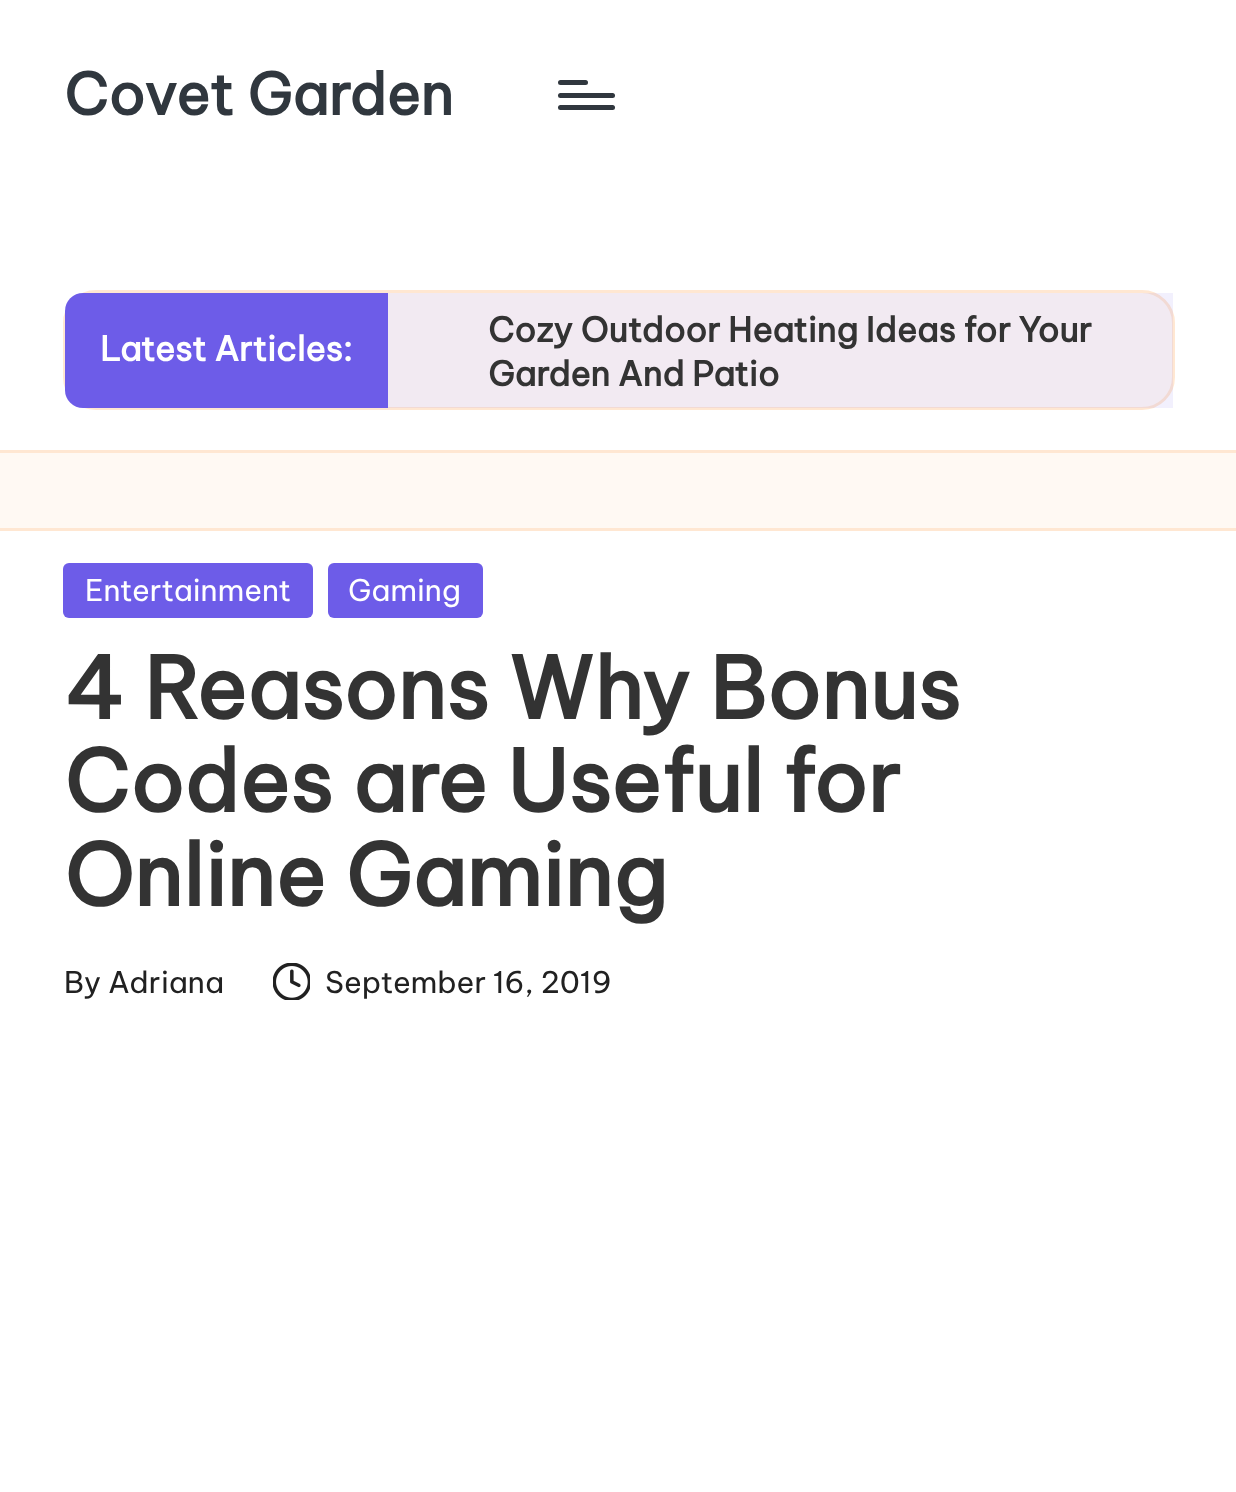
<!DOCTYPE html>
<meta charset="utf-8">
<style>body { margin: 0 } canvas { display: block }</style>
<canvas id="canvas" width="1236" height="1492"></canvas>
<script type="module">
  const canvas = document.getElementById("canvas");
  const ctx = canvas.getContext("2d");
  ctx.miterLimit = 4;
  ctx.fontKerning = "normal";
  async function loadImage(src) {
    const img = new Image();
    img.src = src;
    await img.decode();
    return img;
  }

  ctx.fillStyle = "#ffffff";
  ctx.fillRect(0, 0, 1236, 1492);
  ctx.font = "bold 57.25px Be Vietnam Pro";
  ctx.fillStyle = "#30373e";
  ctx.fillText("Covet Garden", 64, 115);
  ctx.beginPath();
  ctx.roundRect(558, 93, 57, 5, 2.5);
  ctx.fill();
  ctx.beginPath();
  ctx.roundRect(558, 80, 30, 5, 2.5);
  ctx.fill();
  ctx.beginPath();
  ctx.roundRect(558, 105, 57, 5, 2.5);
  ctx.fill();
  ctx.fillStyle = "#fff9f3";
  ctx.beginPath();
  ctx.roundRect(64.5, 291.5, 1109, 117, 31.5);
  ctx.fill();
  ctx.strokeStyle = "#ffe7d2";
  ctx.lineWidth = 3;
  ctx.stroke();
  ctx.fillStyle = "#6d5ce8";
  ctx.beginPath();
  ctx.roundRect(65, 293, 323, 115, [18, 0, 0, 18]);
  ctx.fill();
  ctx.font = "bold 33.9px Be Vietnam Pro";
  ctx.fillStyle = "#ffffff";
  ctx.fillText("Latest Articles:", 100, 361);
  ctx.fillStyle = "rgba(109, 92, 232, 0.09)";
  ctx.fillRect(388, 293, 785, 115);
  ctx.fillStyle = "#333333";
  ctx.fillText("Cozy Outdoor Heating Ideas for Your", 488, 342);
  ctx.fillText("Garden And Patio", 488, 386);
  ctx.fillStyle = "#fff9f3";
  ctx.fillRect(0, 453, 1236, 75);
  ctx.fillStyle = "#ffe7d2";
  ctx.fillRect(0, 450, 1236, 3);
  ctx.fillRect(0, 528, 1236, 3);
  ctx.fillStyle = "#6d5ce8";
  ctx.beginPath();
  ctx.roundRect(63, 563, 250, 55, 6);
  ctx.fill();
  ctx.font = "29.75px Be Vietnam Pro";
  ctx.fillStyle = "#ffffff";
  ctx.fillText("Entertainment", 85, 601);
  ctx.fillStyle = "#6d5ce8";
  ctx.beginPath();
  ctx.roundRect(328, 563, 155, 55, 6);
  ctx.fill();
  ctx.fillStyle = "#ffffff";
  ctx.fillText("Gaming", 348, 601);
  ctx.font = "bold 84.75px Be Vietnam Pro";
  ctx.fillStyle = "#333333";
  ctx.fillText("4 Reasons Why Bonus", 64, 719);
  ctx.fillText("Codes are Useful for", 64, 812);
  ctx.fillText("Online Gaming", 64, 906);
  ctx.font = "29.75px Be Vietnam Pro";
  ctx.fillStyle = "#212121";
  ctx.fillText("By Adriana", 64, 993);
  ctx.drawImage(await loadImage("img1.png"), 273, 963, 37, 37);
  ctx.fillText("September 16, 2019", 325, 993);
</script>
